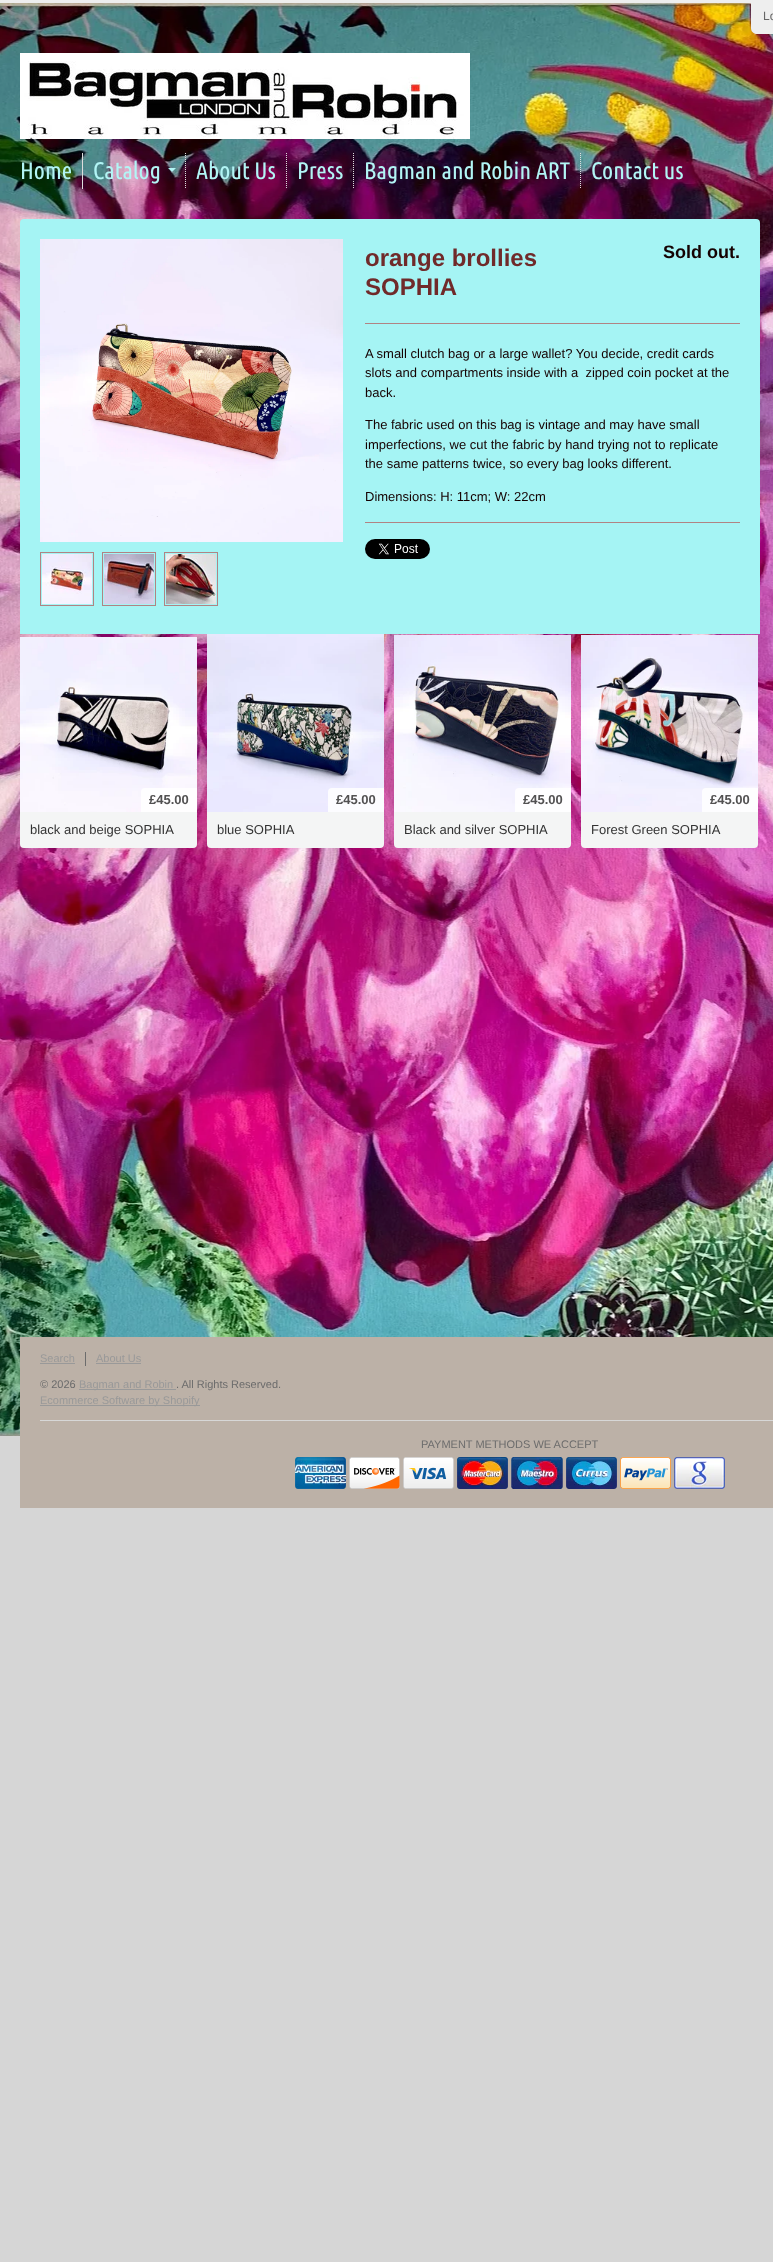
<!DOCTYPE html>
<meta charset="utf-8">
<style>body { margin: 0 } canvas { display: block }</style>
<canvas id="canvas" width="773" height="2262"></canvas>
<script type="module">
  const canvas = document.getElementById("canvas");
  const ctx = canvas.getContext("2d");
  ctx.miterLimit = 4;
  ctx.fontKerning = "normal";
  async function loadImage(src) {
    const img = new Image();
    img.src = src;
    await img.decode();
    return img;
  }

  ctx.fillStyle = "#d6d6d6";
  ctx.fillRect(0, 0, 773, 2262);
  ctx.drawImage(await loadImage("img1.png"), 0, 3, 773, 1433);
  ctx.fillStyle = "#eeeeee";
  ctx.fillRect(0, 0, 773, 3);
  ctx.beginPath();
  ctx.moveTo(751, 3);
  ctx.lineTo(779, 3);
  ctx.lineTo(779, 28);
  ctx.bezierCurveTo(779, 31.5, 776.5, 34, 773, 34);
  ctx.lineTo(757, 34);
  ctx.bezierCurveTo(753.5, 34, 751, 31.5, 751, 28);
  ctx.closePath();
  ctx.fill();
  ctx.font = "12px Liberation Sans";
  ctx.fillStyle = "#666666";
  ctx.fillText("Lo", 763, 20);
  ctx.drawImage(await loadImage("img2.png"), 20, 53, 450, 86);
  ctx.fillStyle = "#dddddd";
  ctx.fillRect(82, 153, 1, 36);
  ctx.font = "24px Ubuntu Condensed";
  ctx.fillStyle = "#b2f5f5";
  ctx.fillText("Home", 20, 179);
  ctx.beginPath();
  ctx.moveTo(185.5, 153);
  ctx.lineTo(185.5, 189);
  ctx.strokeStyle = "#dddddd";
  ctx.setLineDash([1, 1]);
  ctx.stroke();
  ctx.fillText("Catalog", 93, 179);
  ctx.beginPath();
  ctx.moveTo(168, 168);
  ctx.lineTo(176, 168);
  ctx.lineTo(172, 172);
  ctx.closePath();
  ctx.fill();
  ctx.beginPath();
  ctx.moveTo(286.5, 153);
  ctx.lineTo(286.5, 189);
  ctx.stroke();
  ctx.fillText("About Us", 196, 179);
  ctx.beginPath();
  ctx.moveTo(353.5, 153);
  ctx.lineTo(353.5, 189);
  ctx.stroke();
  ctx.fillText("Press", 297, 179);
  ctx.beginPath();
  ctx.moveTo(580.5, 153);
  ctx.lineTo(580.5, 189);
  ctx.stroke();
  ctx.fillText("Bagman and Robin ART", 364, 179);
  ctx.fillText("Contact us", 591, 179);
  ctx.fillStyle = "#a5f4f4";
  ctx.beginPath();
  ctx.roundRect(20, 219, 740, 415, [4, 4, 0, 0]);
  ctx.fill();
  ctx.drawImage(await loadImage("img3.png"), 40, 239, 303, 303);
  ctx.strokeStyle = "#b18383";
  ctx.setLineDash([]);
  ctx.strokeRect(40.5, 552.5, 53, 53);
  ctx.drawImage(await loadImage("img4.png"), 42, 554, 50, 50);
  ctx.strokeRect(102.5, 552.5, 53, 53);
  ctx.drawImage(await loadImage("img5.png"), 104, 554, 50, 50);
  ctx.strokeRect(164.5, 552.5, 53, 53);
  ctx.drawImage(await loadImage("img6.png"), 166, 554, 50, 50);
  ctx.fillStyle = "#b18383";
  ctx.fillRect(365, 323, 375, 1);
  ctx.font = "bold 24px Liberation Sans";
  ctx.fillStyle = "#702a2a";
  ctx.fillText("orange brollies", 365, 266);
  ctx.fillText("SOPHIA", 365, 295);
  ctx.font = "bold 18px Liberation Sans";
  ctx.fillStyle = "#150202";
  ctx.fillText("Sold out.", 663, 258);
  ctx.font = "13px Liberation Sans";
  ctx.fillText("A small clutch bag or a large wallet? You decide, credit cards", 365, 358);
  ctx.fillText("slots and compartments inside with a  zipped coin pocket at the", 365, 377);
  ctx.fillText("back.", 365, 397);
  ctx.fillText("The fabric used on this bag is vintage and may have small", 365, 429);
  ctx.fillText("imperfections, we cut the fabric by hand trying not to replicate", 365, 449);
  ctx.fillText("the same patterns twice, so every bag looks different.", 365, 468);
  ctx.fillText("Dimensions: H: 11cm; W: 22cm", 365, 501);
  ctx.fillStyle = "#b18383";
  ctx.fillRect(365, 522, 375, 1);
  ctx.drawImage(await loadImage("img7.png"), 365, 539, 65, 20);
  ctx.drawImage(await loadImage("img8.png"), 20, 637, 177, 175);
  ctx.fillStyle = "rgba(255, 255, 255, 0.85)";
  ctx.beginPath();
  ctx.roundRect(141, 788, 56, 24, [4, 0, 0, 0]);
  ctx.fill();
  ctx.font = "bold 13px Liberation Sans";
  ctx.fillStyle = "#525152";
  ctx.fillText("£45.00", 149, 804);
  ctx.fillStyle = "#f4f5f5";
  ctx.beginPath();
  ctx.roundRect(20, 812, 177, 36, [0, 0, 4, 4]);
  ctx.fill();
  ctx.font = "13px Liberation Sans";
  ctx.fillStyle = "#333333";
  ctx.fillText("black and beige SOPHIA", 30, 834);
  ctx.drawImage(await loadImage("img9.png"), 207, 634, 177, 178);
  ctx.fillStyle = "rgba(255, 255, 255, 0.85)";
  ctx.beginPath();
  ctx.roundRect(328, 788, 56, 24, [4, 0, 0, 0]);
  ctx.fill();
  ctx.font = "bold 13px Liberation Sans";
  ctx.fillStyle = "#525152";
  ctx.fillText("£45.00", 336, 804);
  ctx.fillStyle = "#f4f5f5";
  ctx.beginPath();
  ctx.roundRect(207, 812, 177, 36, [0, 0, 4, 4]);
  ctx.fill();
  ctx.font = "13px Liberation Sans";
  ctx.fillStyle = "#333333";
  ctx.fillText("blue SOPHIA", 217, 834);
  ctx.drawImage(await loadImage("img10.png"), 394, 635, 177, 177);
  ctx.fillStyle = "rgba(255, 255, 255, 0.85)";
  ctx.beginPath();
  ctx.roundRect(515, 788, 56, 24, [4, 0, 0, 0]);
  ctx.fill();
  ctx.font = "bold 13px Liberation Sans";
  ctx.fillStyle = "#525152";
  ctx.fillText("£45.00", 523, 804);
  ctx.fillStyle = "#f4f5f5";
  ctx.beginPath();
  ctx.roundRect(394, 812, 177, 36, [0, 0, 4, 4]);
  ctx.fill();
  ctx.font = "13px Liberation Sans";
  ctx.fillStyle = "#333333";
  ctx.fillText("Black and silver SOPHIA", 404, 834);
  ctx.drawImage(await loadImage("img11.png"), 581, 635, 177, 177);
  ctx.fillStyle = "rgba(255, 255, 255, 0.85)";
  ctx.beginPath();
  ctx.roundRect(702, 788, 56, 24, [4, 0, 0, 0]);
  ctx.fill();
  ctx.font = "bold 13px Liberation Sans";
  ctx.fillStyle = "#525152";
  ctx.fillText("£45.00", 710, 804);
  ctx.fillStyle = "#f4f5f5";
  ctx.beginPath();
  ctx.roundRect(581, 812, 177, 36, [0, 0, 4, 4]);
  ctx.fill();
  ctx.font = "13px Liberation Sans";
  ctx.fillStyle = "#333333";
  ctx.fillText("Forest Green SOPHIA", 591, 834);
  ctx.fillStyle = "#bcb1a7";
  ctx.fillRect(20, 1337, 753, 171);
  ctx.font = "11px Liberation Sans";
  ctx.fillStyle = "#999999";
  ctx.fillText("Search", 40, 1362);
  ctx.fillRect(40, 1363, 35, 1);
  ctx.fillStyle = "#6c6c6c";
  ctx.fillRect(85, 1352, 1, 14);
  ctx.fillStyle = "#999999";
  ctx.fillText("About Us", 96, 1362);
  ctx.fillRect(96, 1363, 45, 1);
  ctx.fillStyle = "#6c6c6c";
  ctx.fillText("© 2026", 40, 1388);
  ctx.fillStyle = "#999999";
  ctx.fillRect(79, 1389, 97, 1);
  ctx.fillText("Bagman and Robin", 79, 1388);
  ctx.fillStyle = "#6c6c6c";
  ctx.fillText(". All Rights Reserved.", 176, 1388);
  ctx.fillStyle = "#999999";
  ctx.fillRect(40, 1405, 160, 1);
  ctx.fillText("Ecommerce Software by Shopify", 40, 1404);
  ctx.fillStyle = "#d7d7d7";
  ctx.fillRect(40, 1420, 733, 1);
  ctx.fillStyle = "#6c6c6c";
  ctx.fillText("PAYMENT METHODS WE ACCEPT", 421, 1448);
  ctx.drawImage(await loadImage("img12.png"), 295, 1457, 51, 32);
  ctx.drawImage(await loadImage("img13.png"), 349, 1457, 51, 32);
  ctx.drawImage(await loadImage("img14.png"), 403, 1457, 51, 32);
  ctx.drawImage(await loadImage("img15.png"), 457, 1457, 51, 32);
  ctx.drawImage(await loadImage("img16.png"), 511, 1457, 52, 32);
  ctx.drawImage(await loadImage("img17.png"), 566, 1457, 51, 32);
  ctx.drawImage(await loadImage("img18.png"), 620, 1457, 51, 32);
  ctx.drawImage(await loadImage("img19.png"), 674, 1457, 51, 32);
</script>
